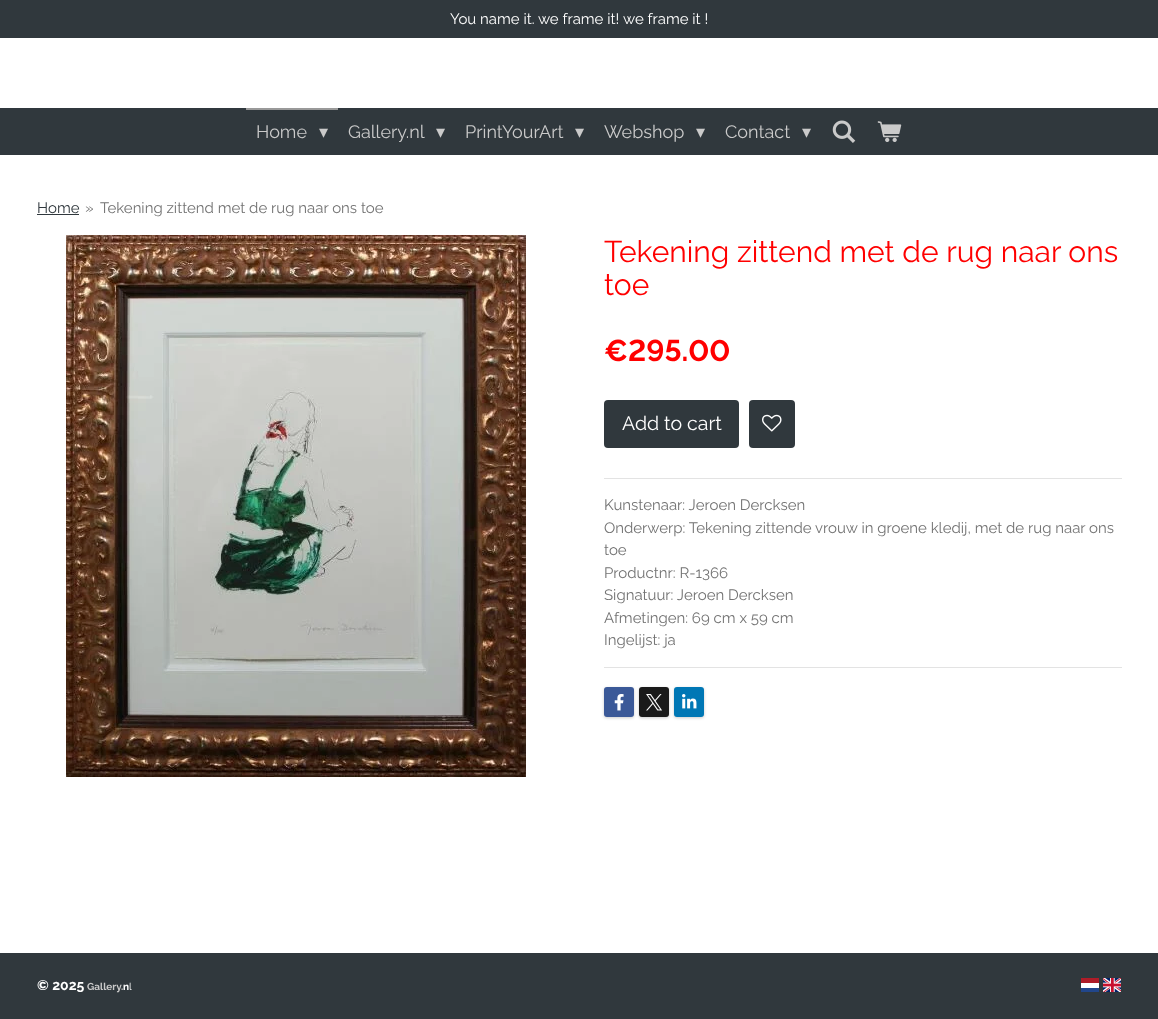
<!DOCTYPE html>
<meta charset="utf-8">
<style>body { margin: 0 } canvas { display: block }</style>
<canvas id="canvas" width="1158" height="1019"></canvas>
<script type="module">
  const canvas = document.getElementById("canvas");
  const ctx = canvas.getContext("2d");
  ctx.miterLimit = 4;
  ctx.fontKerning = "normal";
  async function loadImage(src) {
    const img = new Image();
    img.src = src;
    await img.decode();
    return img;
  }

  ctx.fillStyle = "#ffffff";
  ctx.fillRect(0, 0, 1158, 1019);
  ctx.fillStyle = "#30383d";
  ctx.fillRect(0, 0, 1158, 38);
  ctx.font = "15px Raleway";
  ctx.fillStyle = "#ffffff";
  ctx.fillText("You name it. we frame it!", 450, 24);
  ctx.fillText("we frame it !", 623, 24);
  ctx.fillStyle = "#30383d";
  ctx.fillRect(0, 108, 1158, 47);
  ctx.fillStyle = "#999999";
  ctx.fillRect(246, 108, 92, 2);
  ctx.font = "18px Raleway";
  ctx.fillStyle = "#cacaca";
  ctx.fillText("Home", 256, 138);
  ctx.font = "18px DejaVu Sans";
  ctx.fillText("▾", 319, 138);
  ctx.font = "18px Raleway";
  ctx.fillText("Gallery.nl", 348, 138);
  ctx.font = "18px DejaVu Sans";
  ctx.fillText("▾", 436, 138);
  ctx.font = "18px Raleway";
  ctx.fillText("PrintYourArt", 465, 138);
  ctx.font = "18px DejaVu Sans";
  ctx.fillText("▾", 575, 138);
  ctx.font = "18px Raleway";
  ctx.fillText("Webshop", 604, 138);
  ctx.font = "18px DejaVu Sans";
  ctx.fillText("▾", 696, 138);
  ctx.font = "18px Raleway";
  ctx.fillText("Contact", 725, 138);
  ctx.font = "18px DejaVu Sans";
  ctx.fillText("▾", 802, 138);
  ctx.drawImage(await loadImage("img1.png"), 832, 120, 24, 23);
  ctx.drawImage(await loadImage("img2.png"), 877, 121, 25, 21);
  ctx.font = "15px Raleway";
  ctx.fillStyle = "#30383d";
  ctx.fillText("Home", 37, 213);
  ctx.fillRect(37, 214, 42, 1);
  ctx.fillStyle = "#737373";
  ctx.fillText("»", 85, 213);
  ctx.fillText("Tekening zittend met de rug naar ons toe", 100, 213);
  ctx.drawImage(await loadImage("img3.png"), 66, 235, 460, 542);
  ctx.font = "30px Raleway";
  ctx.fillStyle = "#ff0000";
  ctx.fillText("Tekening zittend met de rug naar ons", 604, 262);
  ctx.fillText("toe", 604, 295);
  ctx.font = "bold 30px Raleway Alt";
  ctx.fillText("€295.00", 604, 361);
  ctx.fillStyle = "#30383d";
  ctx.beginPath();
  ctx.roundRect(604, 400, 135, 48, 4);
  ctx.fill();
  ctx.font = "19.5px Raleway";
  ctx.fillStyle = "#ffffff";
  ctx.fillText("Add to cart", 622, 430);
  ctx.fillStyle = "#30383d";
  ctx.beginPath();
  ctx.roundRect(749, 400, 46, 48, 4);
  ctx.fill();
  ctx.drawImage(await loadImage("img4.png"), 762, 414, 20, 18);
  ctx.fillStyle = "#e3e3e3";
  ctx.fillRect(604, 478, 518, 1);
  ctx.font = "15px Raleway";
  ctx.fillStyle = "#737373";
  ctx.fillText("Kunstenaar: Jeroen Dercksen", 604, 510);
  ctx.fillText("Onderwerp: Tekening zittende vrouw in groene kledij, met de rug naar ons", 604, 533);
  ctx.fillText("toe", 604, 555);
  ctx.fillText("Productnr: R-1366", 604, 578);
  ctx.fillText("Signatuur: Jeroen Dercksen", 604, 600);
  ctx.fillText("Afmetingen: 69 cm x 59 cm", 604, 623);
  ctx.fillText("Ingelijst: ja", 604, 645);
  ctx.fillStyle = "#e3e3e3";
  ctx.fillRect(604, 667, 518, 1);
  ctx.fillStyle = "rgba(0, 0, 0, 0.2)";
  ctx.filter = "blur(1.5px)";
  ctx.beginPath();
  ctx.roundRect(604, 688, 30, 30, 3);
  ctx.fill();
  ctx.filter = "none";
  ctx.fillStyle = "#3b5998";
  ctx.beginPath();
  ctx.roundRect(604, 687, 30, 30, 3);
  ctx.fill();
  ctx.drawImage(await loadImage("img5.png"), 614, 694, 10, 17);
  ctx.fillStyle = "rgba(0, 0, 0, 0.2)";
  ctx.filter = "blur(1.5px)";
  ctx.beginPath();
  ctx.roundRect(639, 688, 30, 30, 3);
  ctx.fill();
  ctx.filter = "none";
  ctx.fillStyle = "#1a1a1a";
  ctx.beginPath();
  ctx.roundRect(639, 687, 30, 30, 3);
  ctx.fill();
  ctx.drawImage(await loadImage("img6.png"), 646, 694, 16, 17);
  ctx.fillStyle = "rgba(0, 0, 0, 0.2)";
  ctx.filter = "blur(1.5px)";
  ctx.beginPath();
  ctx.roundRect(674, 688, 30, 30, 3);
  ctx.fill();
  ctx.filter = "none";
  ctx.fillStyle = "#0077b5";
  ctx.beginPath();
  ctx.roundRect(674, 687, 30, 30, 3);
  ctx.fill();
  ctx.drawImage(await loadImage("img7.png"), 682, 694, 15, 15);
  ctx.fillStyle = "#30383d";
  ctx.fillRect(0, 953, 1158, 66);
  ctx.font = "bold 14px Raleway";
  ctx.fillStyle = "#ffffff";
  ctx.fillText("© 2025", 37, 990);
  ctx.font = "bold 10px Raleway";
  ctx.fillStyle = "#cacaca";
  ctx.fillText("Gallery", 87, 990);
  ctx.fillText(".", 121, 990);
  ctx.fillStyle = "#ffffff";
  ctx.fillText("n", 123, 990);
  ctx.font = "10px Raleway";
  ctx.fillText("l", 129, 990);
  ctx.fillStyle = "#21468b";
  ctx.fillRect(1081, 988, 18, 4);
  ctx.fillStyle = "#ffffff";
  ctx.fillRect(1081, 983, 18, 5);
  ctx.fillStyle = "#ae1c28";
  ctx.fillRect(1081, 978, 18, 5);
  ctx.drawImage(await loadImage("img8.png"), 1103, 978, 18, 14);
</script>
